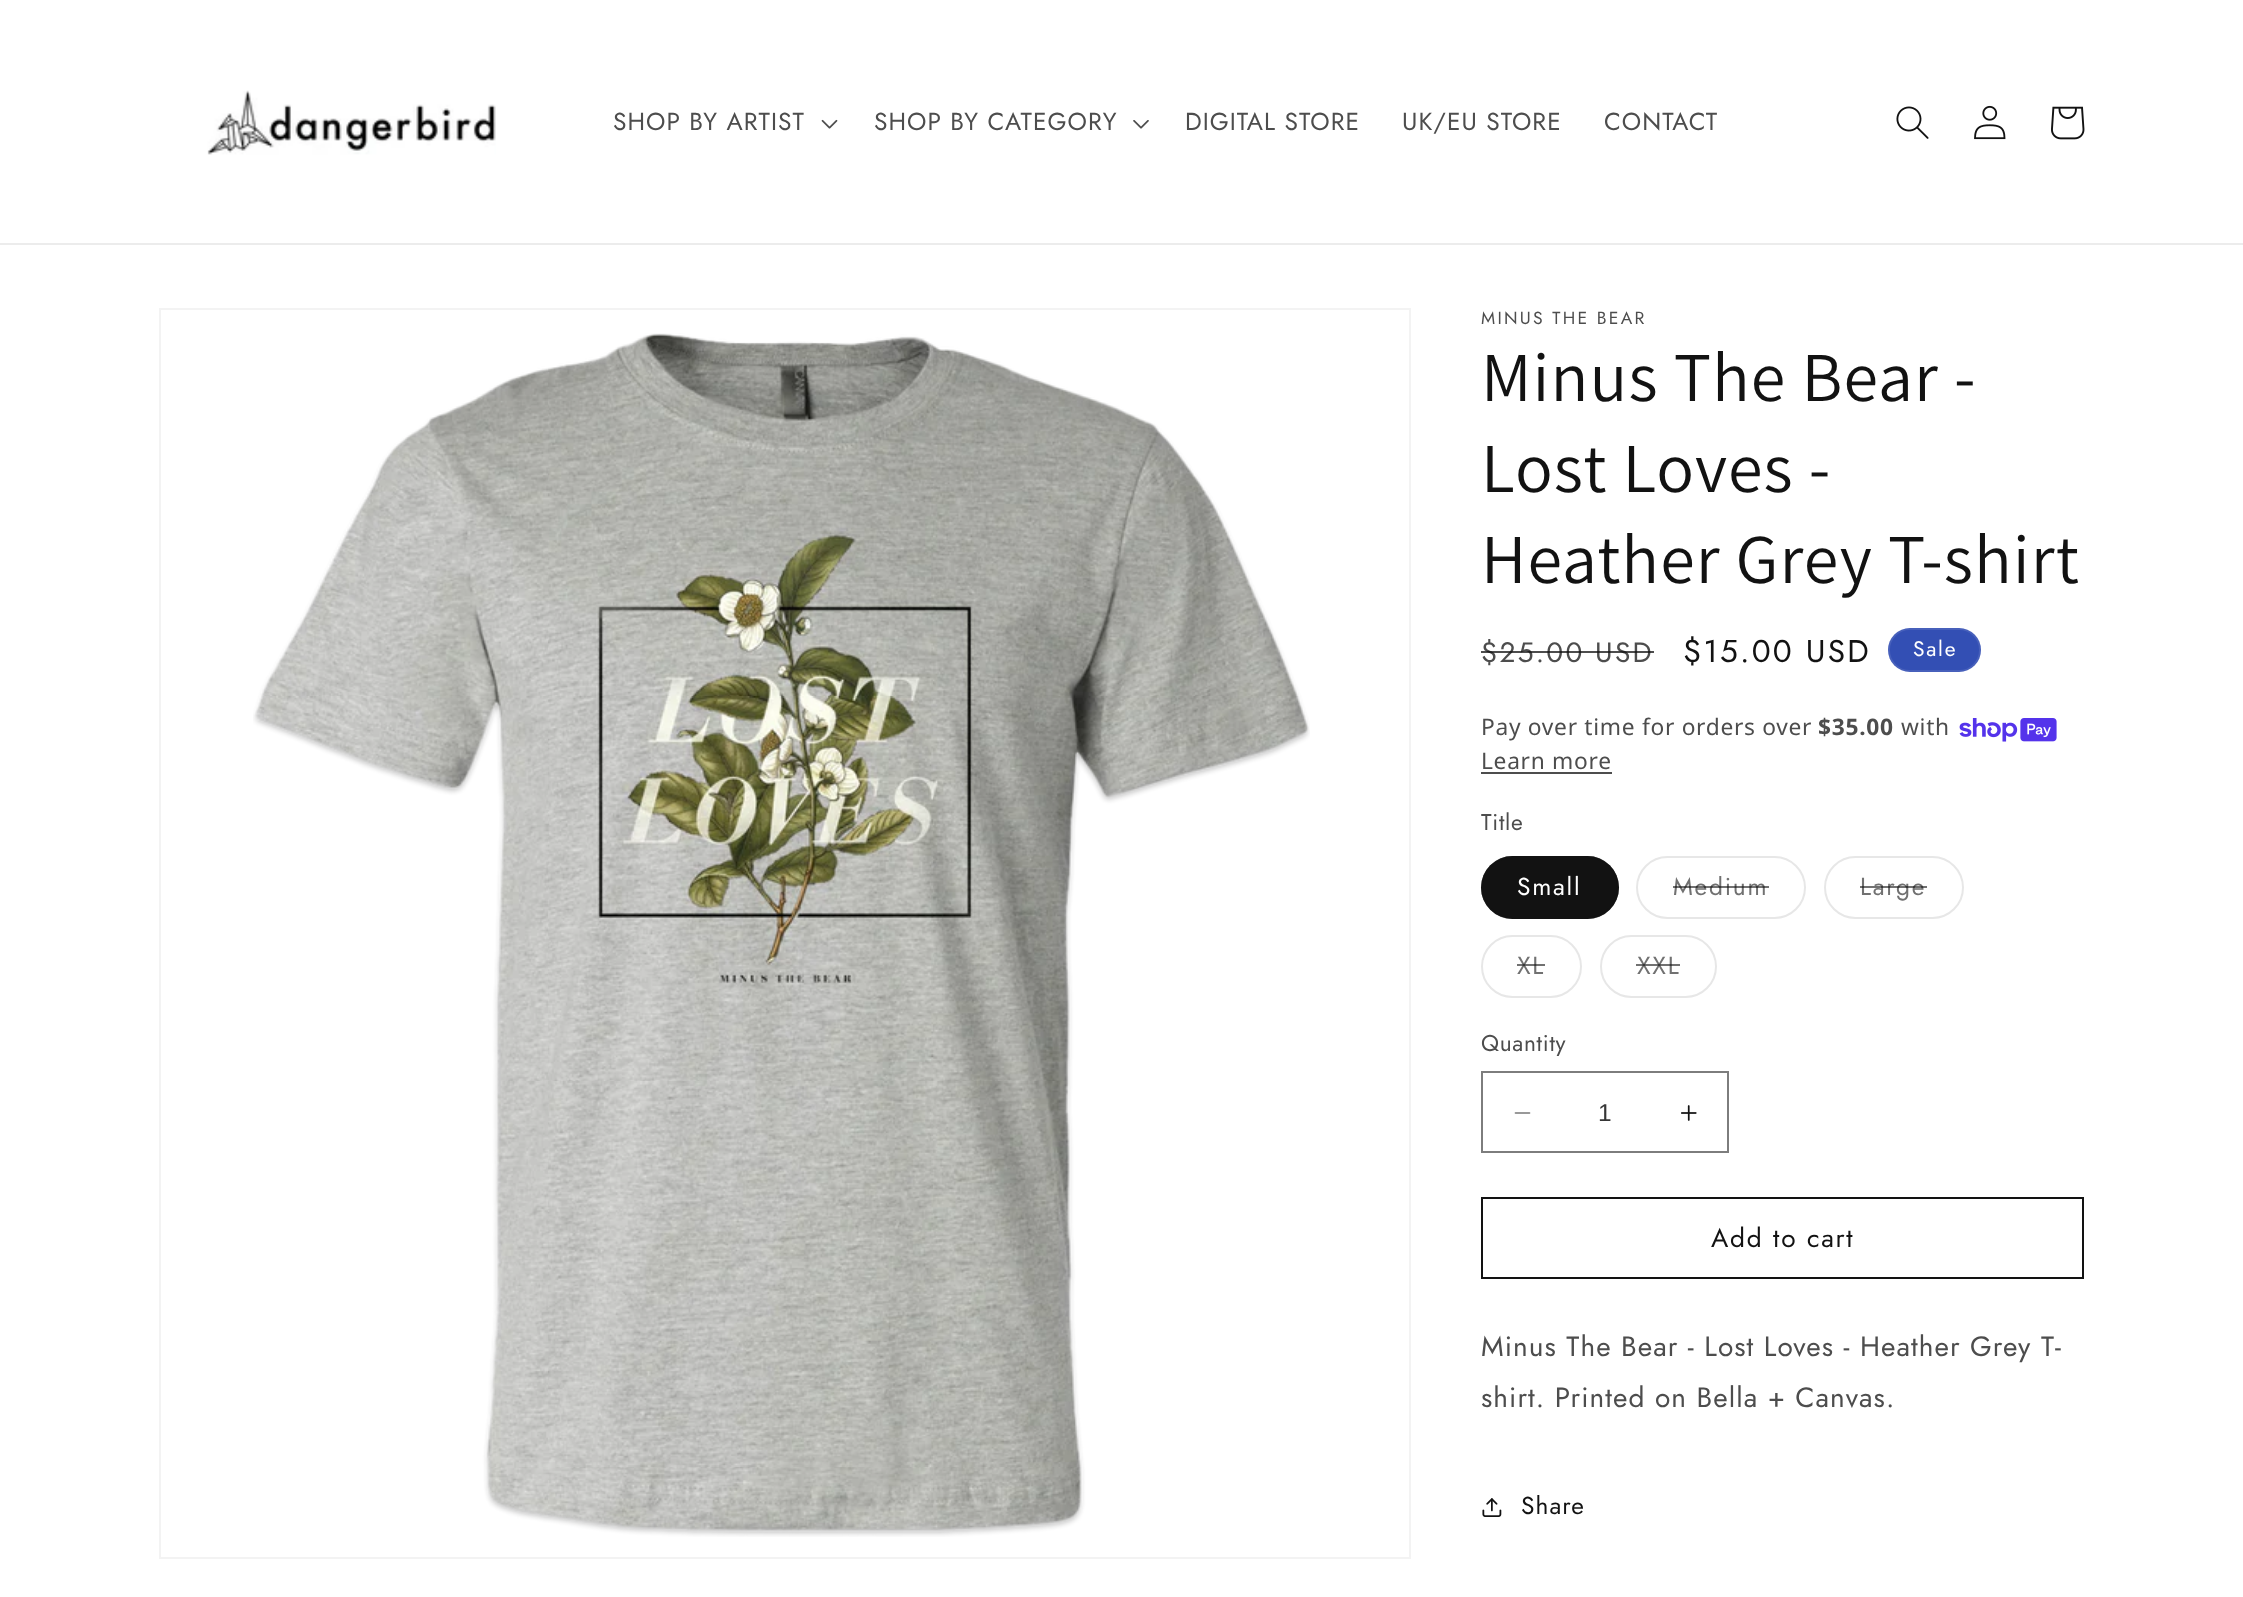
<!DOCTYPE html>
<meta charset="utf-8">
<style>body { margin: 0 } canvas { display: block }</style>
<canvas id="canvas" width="2243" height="1597"></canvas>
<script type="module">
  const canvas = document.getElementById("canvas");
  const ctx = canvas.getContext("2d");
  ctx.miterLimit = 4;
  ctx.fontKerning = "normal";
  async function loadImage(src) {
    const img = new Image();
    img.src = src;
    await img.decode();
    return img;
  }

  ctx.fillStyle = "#ffffff";
  ctx.fillRect(0, 0, 2243, 1597);
  ctx.fillStyle = "#ececec";
  ctx.fillRect(0, 243, 2243, 2);
  ctx.drawImage(await loadImage("img1.png"), 207, 90, 289, 65);
  ctx.letterSpacing = "1.05px";
  ctx.font = "24.5px Jost";
  ctx.fillStyle = "#4d4d4d";
  ctx.fillText("SHOP BY ARTIST", 613, 130);
  ctx.drawImage(await loadImage("img2.png"), 821, 119, 17, 10);
  ctx.fillText("SHOP BY CATEGORY", 874, 130);
  ctx.drawImage(await loadImage("img3.png"), 1133, 120, 16, 9);
  ctx.fillText("DIGITAL STORE", 1185, 130);
  ctx.fillText("UK/EU STORE", 1402, 130);
  ctx.fillText("CONTACT", 1604, 130);
  ctx.drawImage(await loadImage("img4.png"), 1896, 106, 33, 33);
  ctx.drawImage(await loadImage("img5.png"), 1974, 105, 32, 35);
  ctx.drawImage(await loadImage("img6.png"), 2051, 106, 34, 34);
  ctx.strokeStyle = "#f3f3f3";
  ctx.lineWidth = 2;
  ctx.strokeRect(160, 309, 1250, 1249);
  ctx.drawImage(await loadImage("img7.png"), 253, 333, 1057, 1204);
  ctx.letterSpacing = "2.25px";
  ctx.font = "17.5px Jost";
  ctx.fillText("MINUS THE BEAR", 1481, 324);
  ctx.letterSpacing = "1.05px";
  ctx.font = "70px Assistant";
  ctx.fillStyle = "#121212";
  ctx.fillText("Minus The Bear -", 1481, 401);
  ctx.fillText("Lost Loves -", 1481, 492);
  ctx.fillText("Heather Grey T-shirt", 1481, 583);
  ctx.letterSpacing = "2.25px";
  ctx.font = "28px Jost";
  ctx.fillStyle = "#4d4d4d";
  ctx.fillText("$25.00 USD", 1481, 662);
  ctx.fillStyle = "rgba(18, 18, 18, 0.75)";
  ctx.fillRect(1481, 651, 173, 2);
  ctx.font = "31.5px Jost";
  ctx.fillStyle = "#121212";
  ctx.fillText("$15.00 USD", 1683, 662);
  ctx.fillStyle = "#334fb4";
  ctx.beginPath();
  ctx.roundRect(1888, 628, 93, 44, 22);
  ctx.fill();
  ctx.beginPath();
  ctx.roundRect(1889, 629, 91, 42, 21);
  ctx.strokeStyle = "rgba(255, 255, 255, 0.1)";
  ctx.stroke();
  ctx.letterSpacing = "1.75px";
  ctx.font = "21px Jost";
  ctx.fillStyle = "#ffffff";
  ctx.fillText("Sale", 1913, 656);
  ctx.letterSpacing = "0.7px";
  ctx.font = "22.75px Noto Sans";
  ctx.fillStyle = "#4d4d4d";
  ctx.fillText("Pay over time for orders over", 1481, 735);
  ctx.font = "bold 22.75px Noto Sans";
  ctx.fillText("$35.00", 1818, 735);
  ctx.font = "22.75px Noto Sans";
  ctx.fillText("with", 1901, 735);
  ctx.drawImage(await loadImage("img8.png"), 1959, 718, 98, 24);
  ctx.fillText("Learn more", 1481, 769);
  ctx.fillRect(1481, 772, 131, 2);
  ctx.font = "22.75px Jost";
  ctx.fillText("Title", 1481, 830);
  ctx.fillStyle = "#121212";
  ctx.beginPath();
  ctx.roundRect(1481, 856, 138, 63, 31.5);
  ctx.fill();
  ctx.beginPath();
  ctx.roundRect(1482, 857, 136, 61, 30.5);
  ctx.strokeStyle = "rgba(18, 18, 18, 0.55)";
  ctx.stroke();
  ctx.letterSpacing = "1.75px";
  ctx.font = "24.5px Jost";
  ctx.fillStyle = "#ffffff";
  ctx.fillText("Small", 1517, 895);
  ctx.beginPath();
  ctx.roundRect(1637, 857, 168, 61, 30.5);
  ctx.strokeStyle = "#e7e7e7";
  ctx.stroke();
  ctx.fillStyle = "#717171";
  ctx.fillText("Medium", 1673, 895);
  ctx.fillStyle = "rgba(18, 18, 18, 0.6)";
  ctx.fillRect(1673, 886, 96, 2);
  ctx.beginPath();
  ctx.roundRect(1825, 857, 138, 61, 30.5);
  ctx.stroke();
  ctx.fillStyle = "#717171";
  ctx.fillText("Large", 1860, 895);
  ctx.fillStyle = "rgba(18, 18, 18, 0.6)";
  ctx.fillRect(1860, 886, 67, 2);
  ctx.beginPath();
  ctx.roundRect(1482, 936, 99, 61, 30.5);
  ctx.stroke();
  ctx.fillStyle = "#717171";
  ctx.fillText("XL", 1517, 974);
  ctx.fillStyle = "rgba(18, 18, 18, 0.6)";
  ctx.fillRect(1517, 964, 28, 2);
  ctx.beginPath();
  ctx.roundRect(1601, 936, 115, 61, 30.5);
  ctx.stroke();
  ctx.fillStyle = "#717171";
  ctx.fillText("XXL", 1637, 974);
  ctx.fillStyle = "rgba(18, 18, 18, 0.6)";
  ctx.fillRect(1636, 964, 44, 2);
  ctx.letterSpacing = "0.7px";
  ctx.font = "22.75px Jost";
  ctx.fillStyle = "#4d4d4d";
  ctx.fillText("Quantity", 1481, 1051);
  ctx.drawImage(await loadImage("img9.png"), 1514, 1112, 17, 2);
  ctx.drawImage(await loadImage("img10.png"), 1681, 1105, 16, 16);
  ctx.strokeStyle = "#7d7d7d";
  ctx.strokeRect(1482, 1072, 246, 80);
  ctx.letterSpacing = "0px";
  ctx.font = "24.5px Liberation Sans";
  ctx.fillStyle = "#363636";
  ctx.fillText("1", 1598, 1121);
  ctx.strokeStyle = "#121212";
  ctx.strokeRect(1482, 1198, 601, 80);
  ctx.letterSpacing = "1.75px";
  ctx.font = "26.25px Jost";
  ctx.fillStyle = "#121212";
  ctx.fillText("Add to cart", 1711, 1247);
  ctx.letterSpacing = "1.05px";
  ctx.font = "28px Jost";
  ctx.fillStyle = "#4d4d4d";
  ctx.fillText("Minus The Bear - Lost Loves - Heather Grey T-", 1481, 1356);
  ctx.fillText("shirt. Printed on Bella + Canvas.", 1481, 1407);
  ctx.drawImage(await loadImage("img11.png"), 1482, 1498, 20, 19);
  ctx.font = "24.5px Jost";
  ctx.fillStyle = "#121212";
  ctx.fillText("Share", 1521, 1514);
</script>
